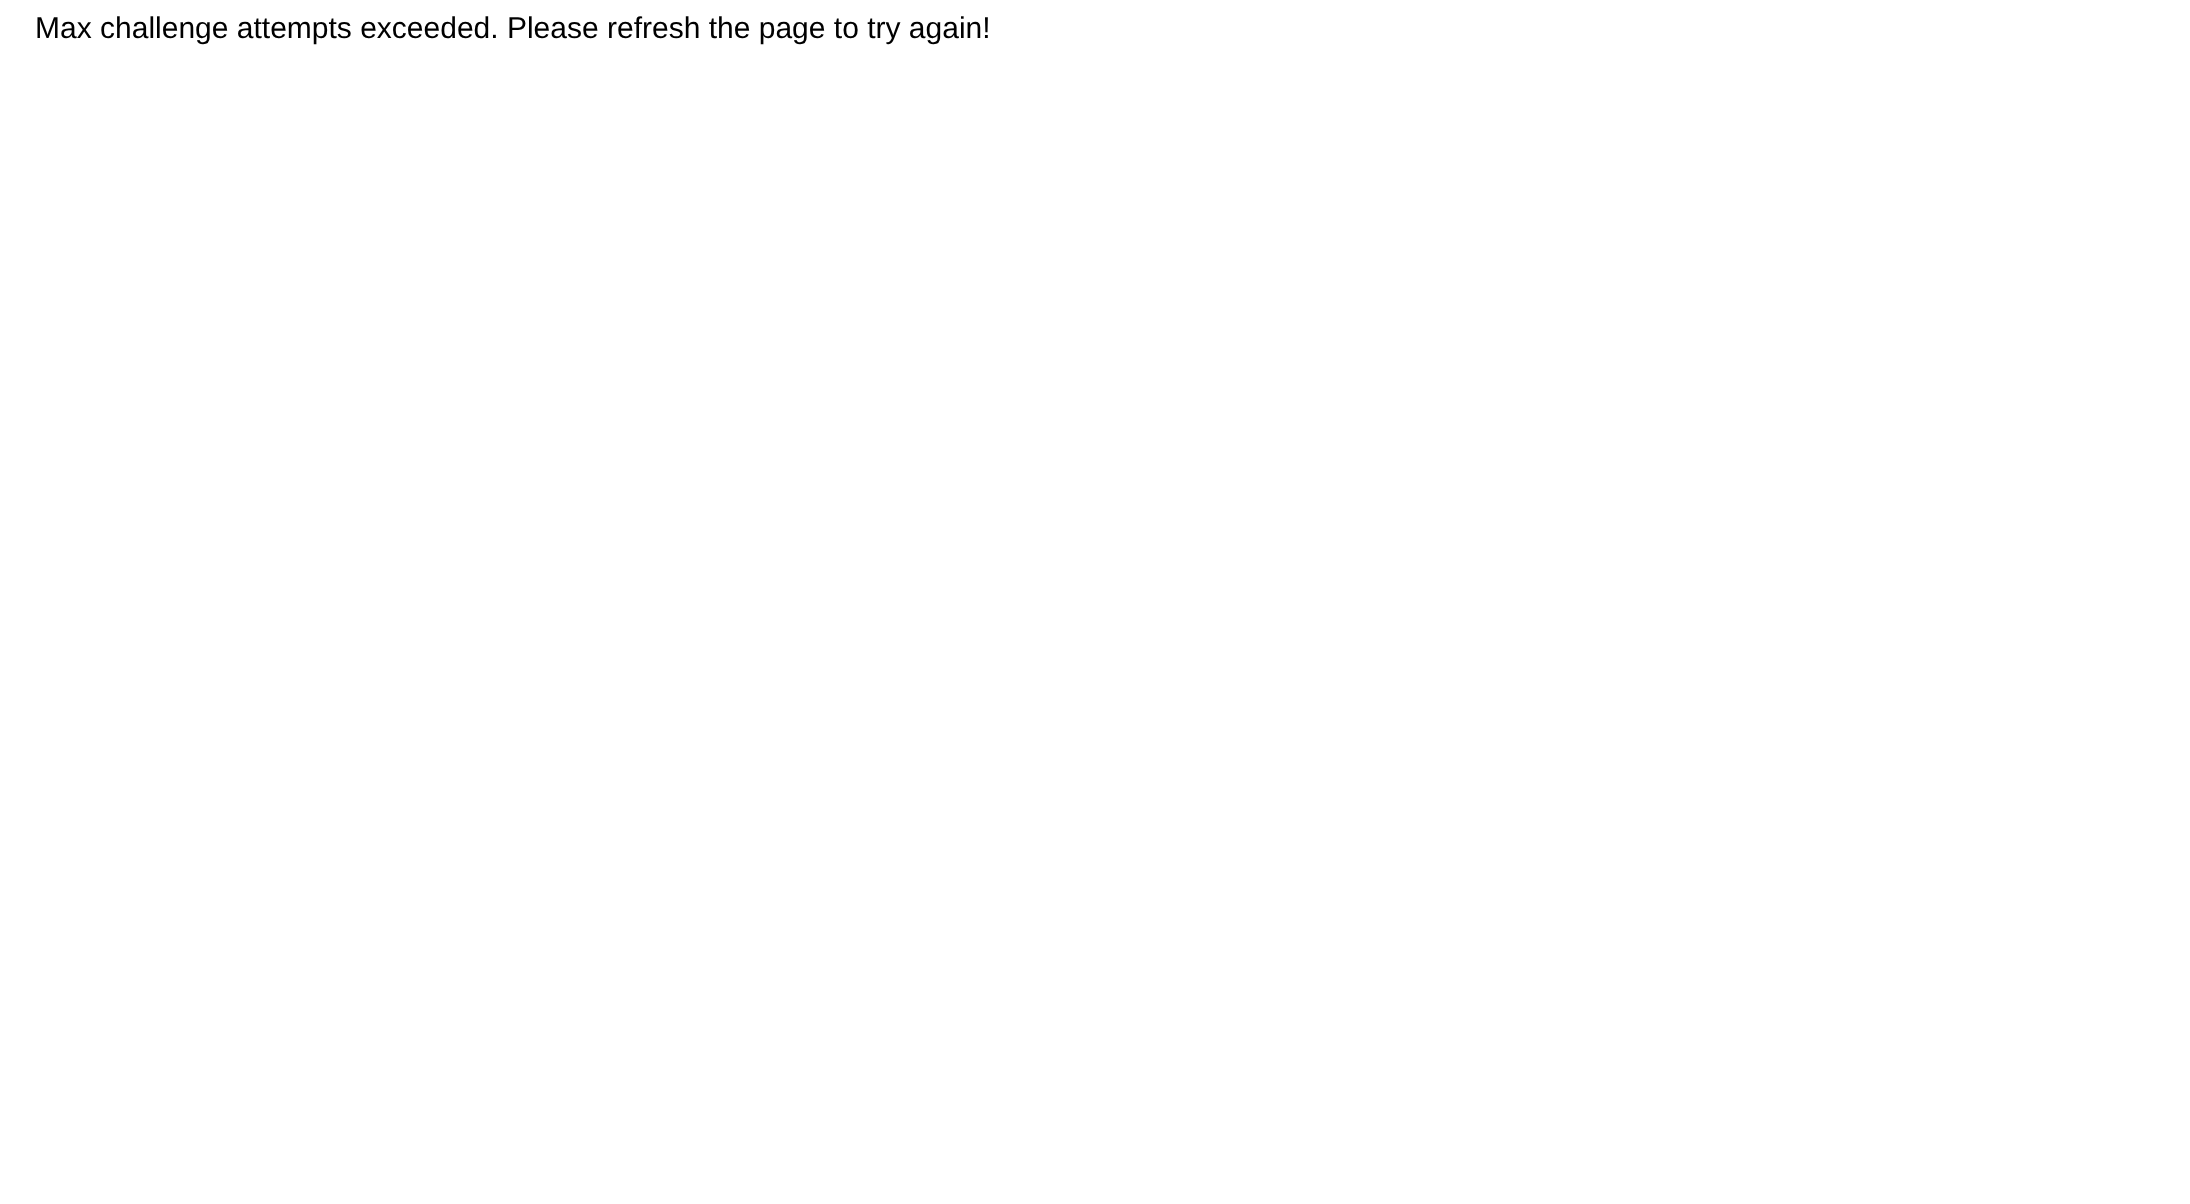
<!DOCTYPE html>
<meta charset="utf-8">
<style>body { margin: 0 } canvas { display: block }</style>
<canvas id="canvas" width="2190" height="1204"></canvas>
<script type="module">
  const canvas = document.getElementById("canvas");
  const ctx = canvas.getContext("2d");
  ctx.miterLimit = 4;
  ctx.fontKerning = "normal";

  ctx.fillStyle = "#ffffff";
  ctx.fillRect(0, 0, 2190, 1204);
  ctx.font = "30px Liberation Sans";
  ctx.fillStyle = "#000000";
  ctx.fillText("Max challenge attempts exceeded. Please refresh the page to try again!", 35, 38);
</script>
